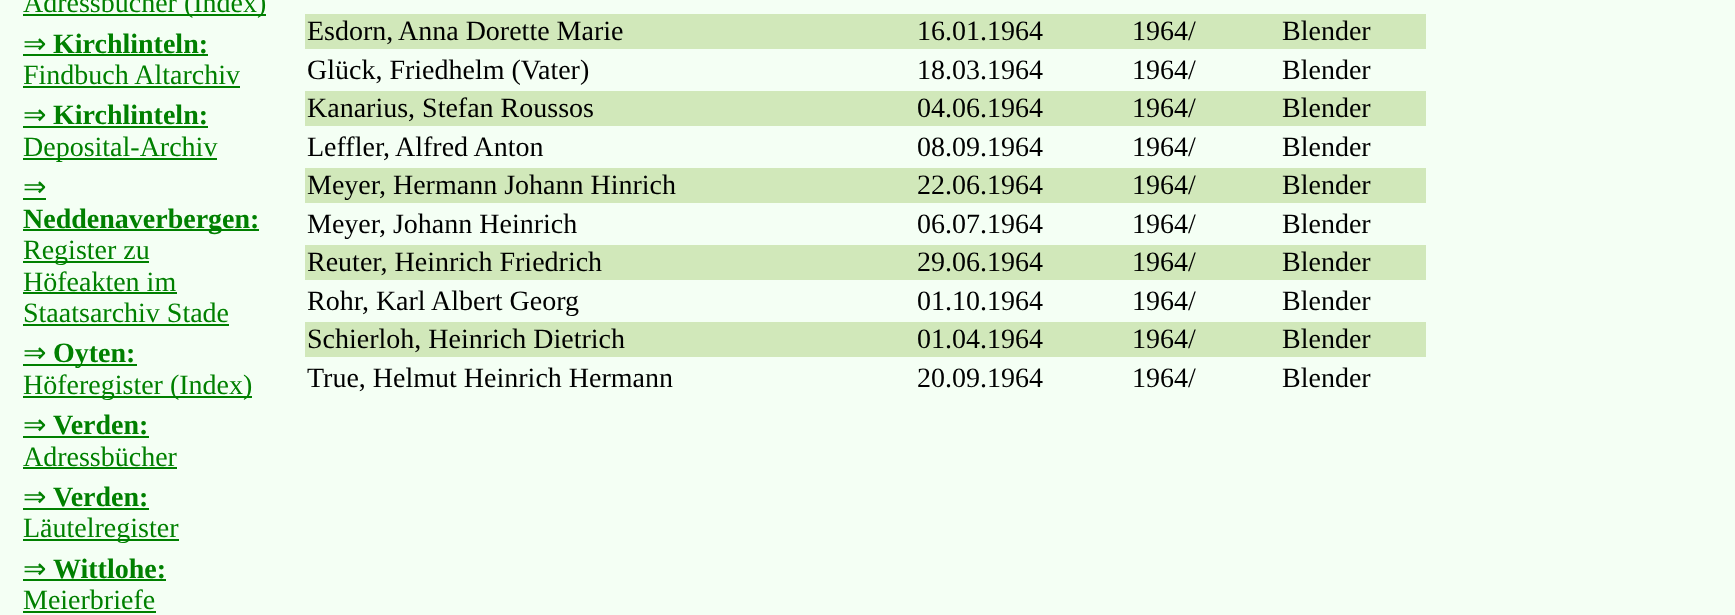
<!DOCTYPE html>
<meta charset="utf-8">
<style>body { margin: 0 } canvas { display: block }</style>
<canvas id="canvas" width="1735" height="615"></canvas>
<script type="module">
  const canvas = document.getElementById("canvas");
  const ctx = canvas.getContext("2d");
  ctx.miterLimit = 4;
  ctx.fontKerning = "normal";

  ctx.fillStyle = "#f4fff4";
  ctx.fillRect(0, 0, 1735, 615);
  ctx.fillStyle = "#008000";
  ctx.fillRect(23, 14, 243, 2);
  ctx.font = "28px Liberation Serif";
  ctx.fillText("Adressbücher (Index)", 23, 12);
  ctx.font = "28px DejaVu Sans";
  ctx.fillText("⇒", 23, 53);
  ctx.fillRect(23, 54, 185, 2);
  ctx.font = "bold 28px Liberation Serif";
  ctx.fillText("Kirchlinteln:", 53, 53);
  ctx.font = "28px Liberation Serif";
  ctx.fillText("Findbuch Altarchiv", 23, 84);
  ctx.fillRect(23, 86, 217, 2);
  ctx.font = "28px DejaVu Sans";
  ctx.fillText("⇒", 23, 124);
  ctx.fillRect(23, 126, 185, 2);
  ctx.font = "bold 28px Liberation Serif";
  ctx.fillText("Kirchlinteln:", 53, 124);
  ctx.fillRect(23, 158, 194, 2);
  ctx.font = "28px Liberation Serif";
  ctx.fillText("Deposital-Archiv", 23, 156);
  ctx.font = "28px DejaVu Sans";
  ctx.fillText("⇒", 23, 196);
  ctx.fillRect(23, 198, 23, 2);
  ctx.fillRect(23, 229, 236, 2);
  ctx.font = "bold 28px Liberation Serif";
  ctx.fillText("Neddenaverbergen:", 23, 228);
  ctx.fillRect(23, 261, 126, 2);
  ctx.font = "28px Liberation Serif";
  ctx.fillText("Register zu", 23, 259);
  ctx.fillText("Höfeakten im", 23, 291);
  ctx.fillRect(23, 292, 154, 2);
  ctx.fillText("Staatsarchiv Stade", 23, 322);
  ctx.fillRect(23, 324, 206, 2);
  ctx.font = "28px DejaVu Sans";
  ctx.fillText("⇒", 23, 362);
  ctx.fillRect(23, 364, 114, 2);
  ctx.font = "bold 28px Liberation Serif";
  ctx.fillText("Oyten:", 53, 362);
  ctx.fillRect(23, 396, 229, 2);
  ctx.font = "28px Liberation Serif";
  ctx.fillText("Höferegister (Index)", 23, 394);
  ctx.font = "28px DejaVu Sans";
  ctx.fillText("⇒", 23, 434);
  ctx.fillRect(23, 436, 126, 2);
  ctx.font = "bold 28px Liberation Serif";
  ctx.fillText("Verden:", 53, 434);
  ctx.font = "28px Liberation Serif";
  ctx.fillText("Adressbücher", 23, 466);
  ctx.fillRect(23, 467, 154, 2);
  ctx.font = "28px DejaVu Sans";
  ctx.fillText("⇒", 23, 506);
  ctx.fillRect(23, 508, 126, 2);
  ctx.font = "bold 28px Liberation Serif";
  ctx.fillText("Verden:", 53, 506);
  ctx.fillRect(23, 539, 156, 2);
  ctx.font = "28px Liberation Serif";
  ctx.fillText("Läutelregister", 23, 537);
  ctx.font = "28px DejaVu Sans";
  ctx.fillText("⇒", 23, 578);
  ctx.fillRect(23, 579, 143, 2);
  ctx.font = "bold 28px Liberation Serif";
  ctx.fillText("Wittlohe:", 53, 578);
  ctx.font = "28px Liberation Serif";
  ctx.fillText("Meierbriefe", 23, 609);
  ctx.fillRect(23, 611, 133, 2);
  ctx.fillStyle = "#d1e8ba";
  ctx.fillRect(305, 14, 1121, 35);
  ctx.fillStyle = "#000000";
  ctx.fillText("Esdorn,", 307, 40);
  ctx.fillText("Anna Dorette Marie", 398, 40);
  ctx.fillText("16.01.1964", 917, 40);
  ctx.fillText("1964/", 1132, 40);
  ctx.fillText("Blender", 1282, 40);
  ctx.fillText("Glück, Friedhelm (Vater)", 307, 79);
  ctx.fillText("18.03.1964", 917, 79);
  ctx.fillText("1964/", 1132, 79);
  ctx.fillText("Blender", 1282, 79);
  ctx.fillStyle = "#d1e8ba";
  ctx.fillRect(305, 91, 1121, 35);
  ctx.fillStyle = "#000000";
  ctx.fillText("Kanarius, Stefan Roussos", 307, 117);
  ctx.fillText("04.06.1964", 917, 117);
  ctx.fillText("1964/", 1132, 117);
  ctx.fillText("Blender", 1282, 117);
  ctx.fillText("Leffler,", 307, 156);
  ctx.fillText("Alfred Anton", 395, 156);
  ctx.fillText("08.09.1964", 917, 156);
  ctx.fillText("1964/", 1132, 156);
  ctx.fillText("Blender", 1282, 156);
  ctx.fillStyle = "#d1e8ba";
  ctx.fillRect(305, 168, 1121, 35);
  ctx.fillStyle = "#000000";
  ctx.fillText("Meyer, Hermann Johann Hinrich", 307, 194);
  ctx.fillText("22.06.1964", 917, 194);
  ctx.fillText("1964/", 1132, 194);
  ctx.fillText("Blender", 1282, 194);
  ctx.fillText("Meyer, Johann Heinrich", 307, 233);
  ctx.fillText("06.07.1964", 917, 233);
  ctx.fillText("1964/", 1132, 233);
  ctx.fillText("Blender", 1282, 233);
  ctx.fillStyle = "#d1e8ba";
  ctx.fillRect(305, 245, 1121, 35);
  ctx.fillStyle = "#000000";
  ctx.fillText("Reuter, Heinrich Friedrich", 307, 271);
  ctx.fillText("29.06.1964", 917, 271);
  ctx.fillText("1964/", 1132, 271);
  ctx.fillText("Blender", 1282, 271);
  ctx.fillText("Rohr, Karl Albert Georg", 307, 310);
  ctx.fillText("01.10.1964", 917, 310);
  ctx.fillText("1964/", 1132, 310);
  ctx.fillText("Blender", 1282, 310);
  ctx.fillStyle = "#d1e8ba";
  ctx.fillRect(305, 322, 1121, 35);
  ctx.fillStyle = "#000000";
  ctx.fillText("Schierloh, Heinrich Dietrich", 307, 348);
  ctx.fillText("01.04.1964", 917, 348);
  ctx.fillText("1964/", 1132, 348);
  ctx.fillText("Blender", 1282, 348);
  ctx.fillText("True, Helmut Heinrich Hermann", 307, 387);
  ctx.fillText("20.09.1964", 917, 387);
  ctx.fillText("1964/", 1132, 387);
  ctx.fillText("Blender", 1282, 387);
</script>
